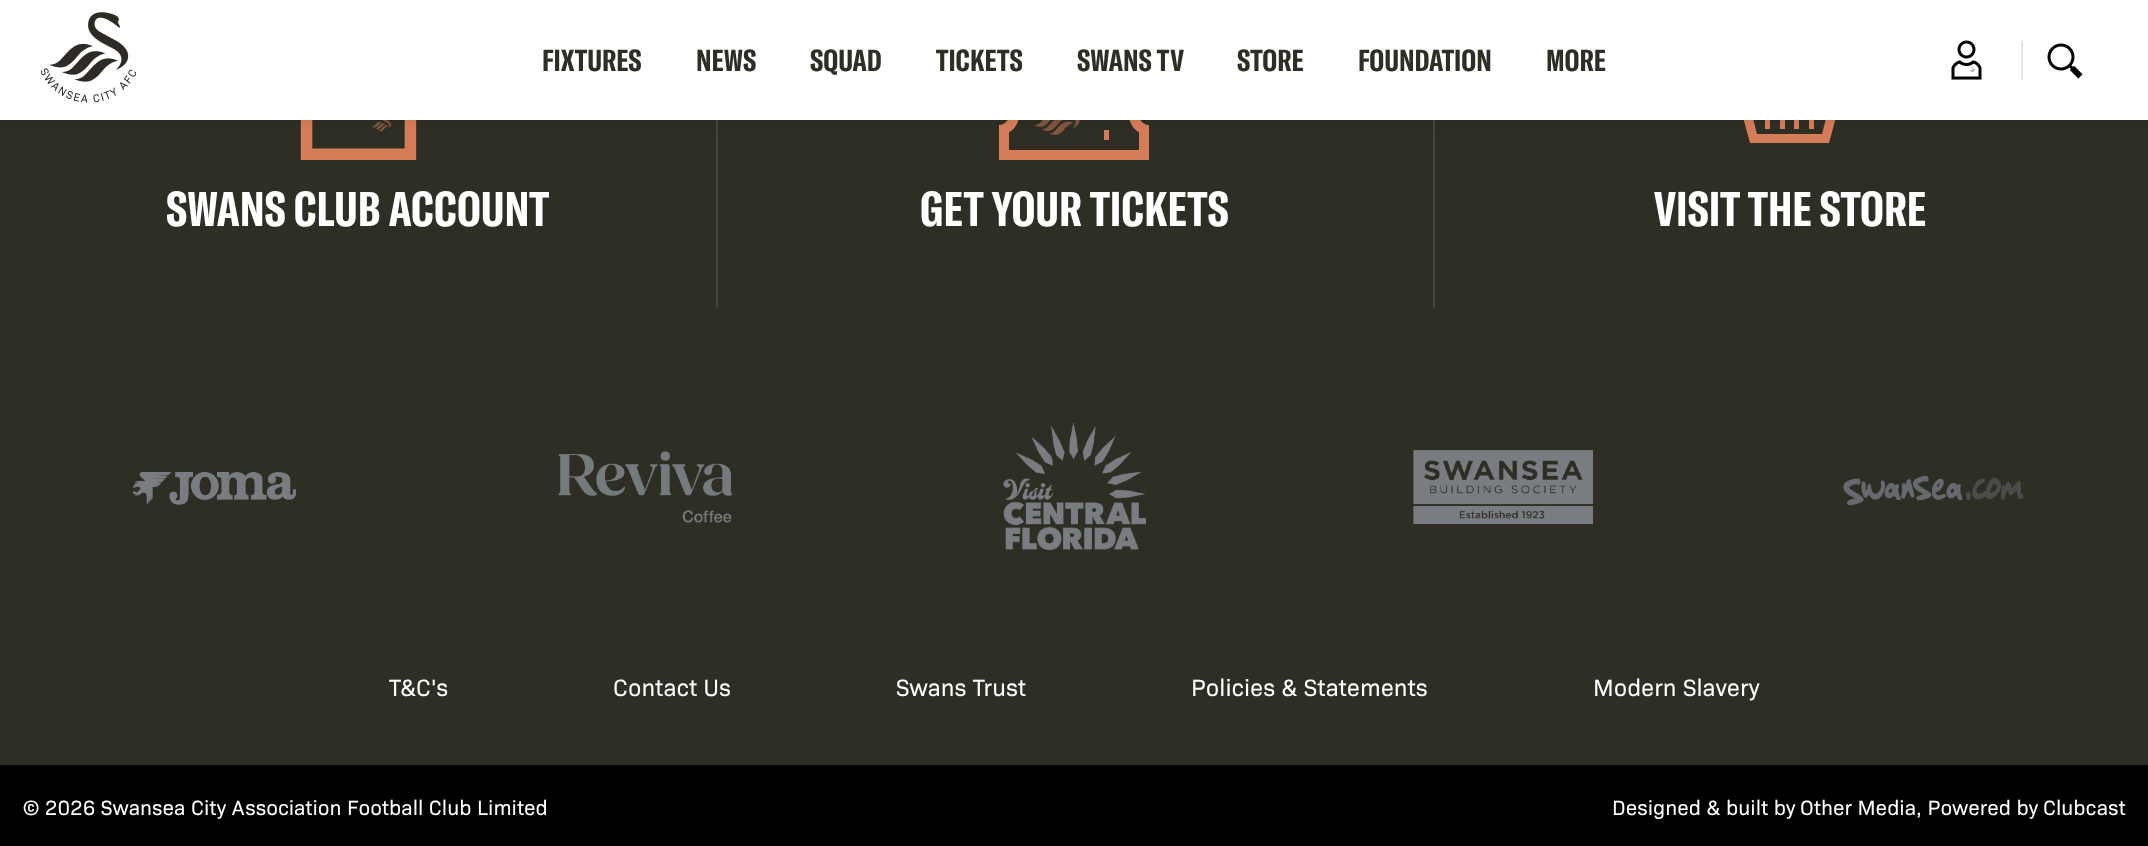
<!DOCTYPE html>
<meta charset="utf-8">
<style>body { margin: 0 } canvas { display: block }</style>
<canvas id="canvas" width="2148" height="846"></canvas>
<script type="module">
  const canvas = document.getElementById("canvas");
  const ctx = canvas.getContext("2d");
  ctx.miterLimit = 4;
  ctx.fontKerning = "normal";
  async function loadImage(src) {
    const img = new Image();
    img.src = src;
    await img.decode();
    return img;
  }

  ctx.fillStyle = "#2e2e25";
  ctx.fillRect(0, 0, 2148, 846);
  ctx.drawImage(await loadImage("img4.png"), 300, 120, 117, 40);
  ctx.fillStyle = "#434343";
  ctx.fillRect(716, 120, 2, 188);
  ctx.drawImage(await loadImage("img5.png"), 999, 120, 150, 40);
  ctx.fillRect(1433, 120, 2, 188);
  ctx.fillStyle = "#d57d59";
  ctx.fillRect(1765, 120, 5, 9);
  ctx.fillRect(1780, 120, 5, 9);
  ctx.fillRect(1794, 120, 5, 9);
  ctx.fillRect(1809, 120, 5, 9);
  ctx.beginPath();
  ctx.moveTo(1838, 61);
  ctx.lineTo(1798, 61);
  ctx.lineTo(1806, 32);
  ctx.lineTo(1792, 28);
  ctx.lineTo(1783, 61);
  ctx.lineTo(1732, 61);
  ctx.lineTo(1732, 95);
  ctx.lineTo(1737, 95);
  ctx.lineTo(1750, 143);
  ctx.lineTo(1829, 143);
  ctx.lineTo(1842, 95);
  ctx.lineTo(1847, 95);
  ctx.lineTo(1847, 61);
  ctx.closePath();
  ctx.moveTo(1796, 34);
  ctx.lineTo(1800, 35);
  ctx.lineTo(1789, 77);
  ctx.lineTo(1785, 75);
  ctx.lineTo(1788, 61);
  ctx.closePath();
  ctx.moveTo(1781, 71);
  ctx.lineTo(1779, 79);
  ctx.lineTo(1793, 82);
  ctx.lineTo(1796, 71);
  ctx.lineTo(1838, 71);
  ctx.lineTo(1838, 86);
  ctx.lineTo(1741, 86);
  ctx.lineTo(1741, 71);
  ctx.closePath();
  ctx.moveTo(1822, 134);
  ctx.lineTo(1757, 134);
  ctx.lineTo(1747, 95);
  ctx.lineTo(1832, 95);
  ctx.closePath();
  ctx.fill();
  ctx.fillStyle = "rgba(0, 0, 0, 0.06)";
  ctx.filter = "blur(4.5px)";
  ctx.beginPath();
  ctx.rect(0, 3, 2148, 120);
  ctx.fill();
  ctx.filter = "none";
  ctx.fillStyle = "#ffffff";
  ctx.fillRect(0, 0, 2148, 120);
  ctx.drawImage(await loadImage("img1.png"), 41, 12, 96, 91);
  ctx.drawImage(await loadImage("img2.png"), 1951, 40, 31, 40);
  ctx.fillStyle = "#e6e6e6";
  ctx.fillRect(2021, 41, 2, 39);
  ctx.drawImage(await loadImage("img3.png"), 2047, 43, 36, 36);
  ctx.font = "bold 30px GT America";
  ctx.fillStyle = "#2e2e25";
  ctx.fillText("FIXTURES", 542, 71);
  ctx.fillText("NEWS", 696, 71);
  ctx.fillText("SQUAD", 810, 71);
  ctx.fillText("TICKETS", 936, 71);
  ctx.fillText("SWANS TV", 1077, 71);
  ctx.fillText("STORE", 1237, 71);
  ctx.fillText("FOUNDATION", 1358, 71);
  ctx.fillText("MORE", 1546, 71);
  ctx.font = "bold 48px GT America";
  ctx.fillStyle = "#ffffff";
  ctx.fillText("SWANS CLUB ACCOUNT", 166, 226);
  ctx.fillText("GET YOUR TICKETS", 920, 226);
  ctx.fillText("VISIT THE STORE", 1654, 226);
  ctx.drawImage(await loadImage("img6.png"), 132, 471, 164, 34);
  ctx.drawImage(await loadImage("img7.png"), 558, 451, 174, 72);
  ctx.drawImage(await loadImage("img8.png"), 1003, 422, 143, 128);
  ctx.drawImage(await loadImage("img9.png"), 1413, 450, 180, 74);
  ctx.drawImage(await loadImage("img10.png"), 1843, 475, 181, 31);
  ctx.font = "24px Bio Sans";
  ctx.fillText("T&C's", 389, 696);
  ctx.fillText("Contact Us", 613, 696);
  ctx.fillText("Swans Trust", 896, 696);
  ctx.fillText("Policies & Statements", 1191, 696);
  ctx.fillText("Modern Slavery", 1593, 696);
  ctx.fillStyle = "#000000";
  ctx.fillRect(0, 765, 2148, 81);
  ctx.font = "21px Bio Sans";
  ctx.fillStyle = "#ffffff";
  ctx.fillText("© 2026 Swansea City Association Football Club Limited", 23, 815);
  ctx.fillText("Designed & built by", 1612, 815);
  ctx.fillText("Other Media, Powered by", 1800, 815);
  ctx.fillText("Clubcast", 2043, 815);
</script>
